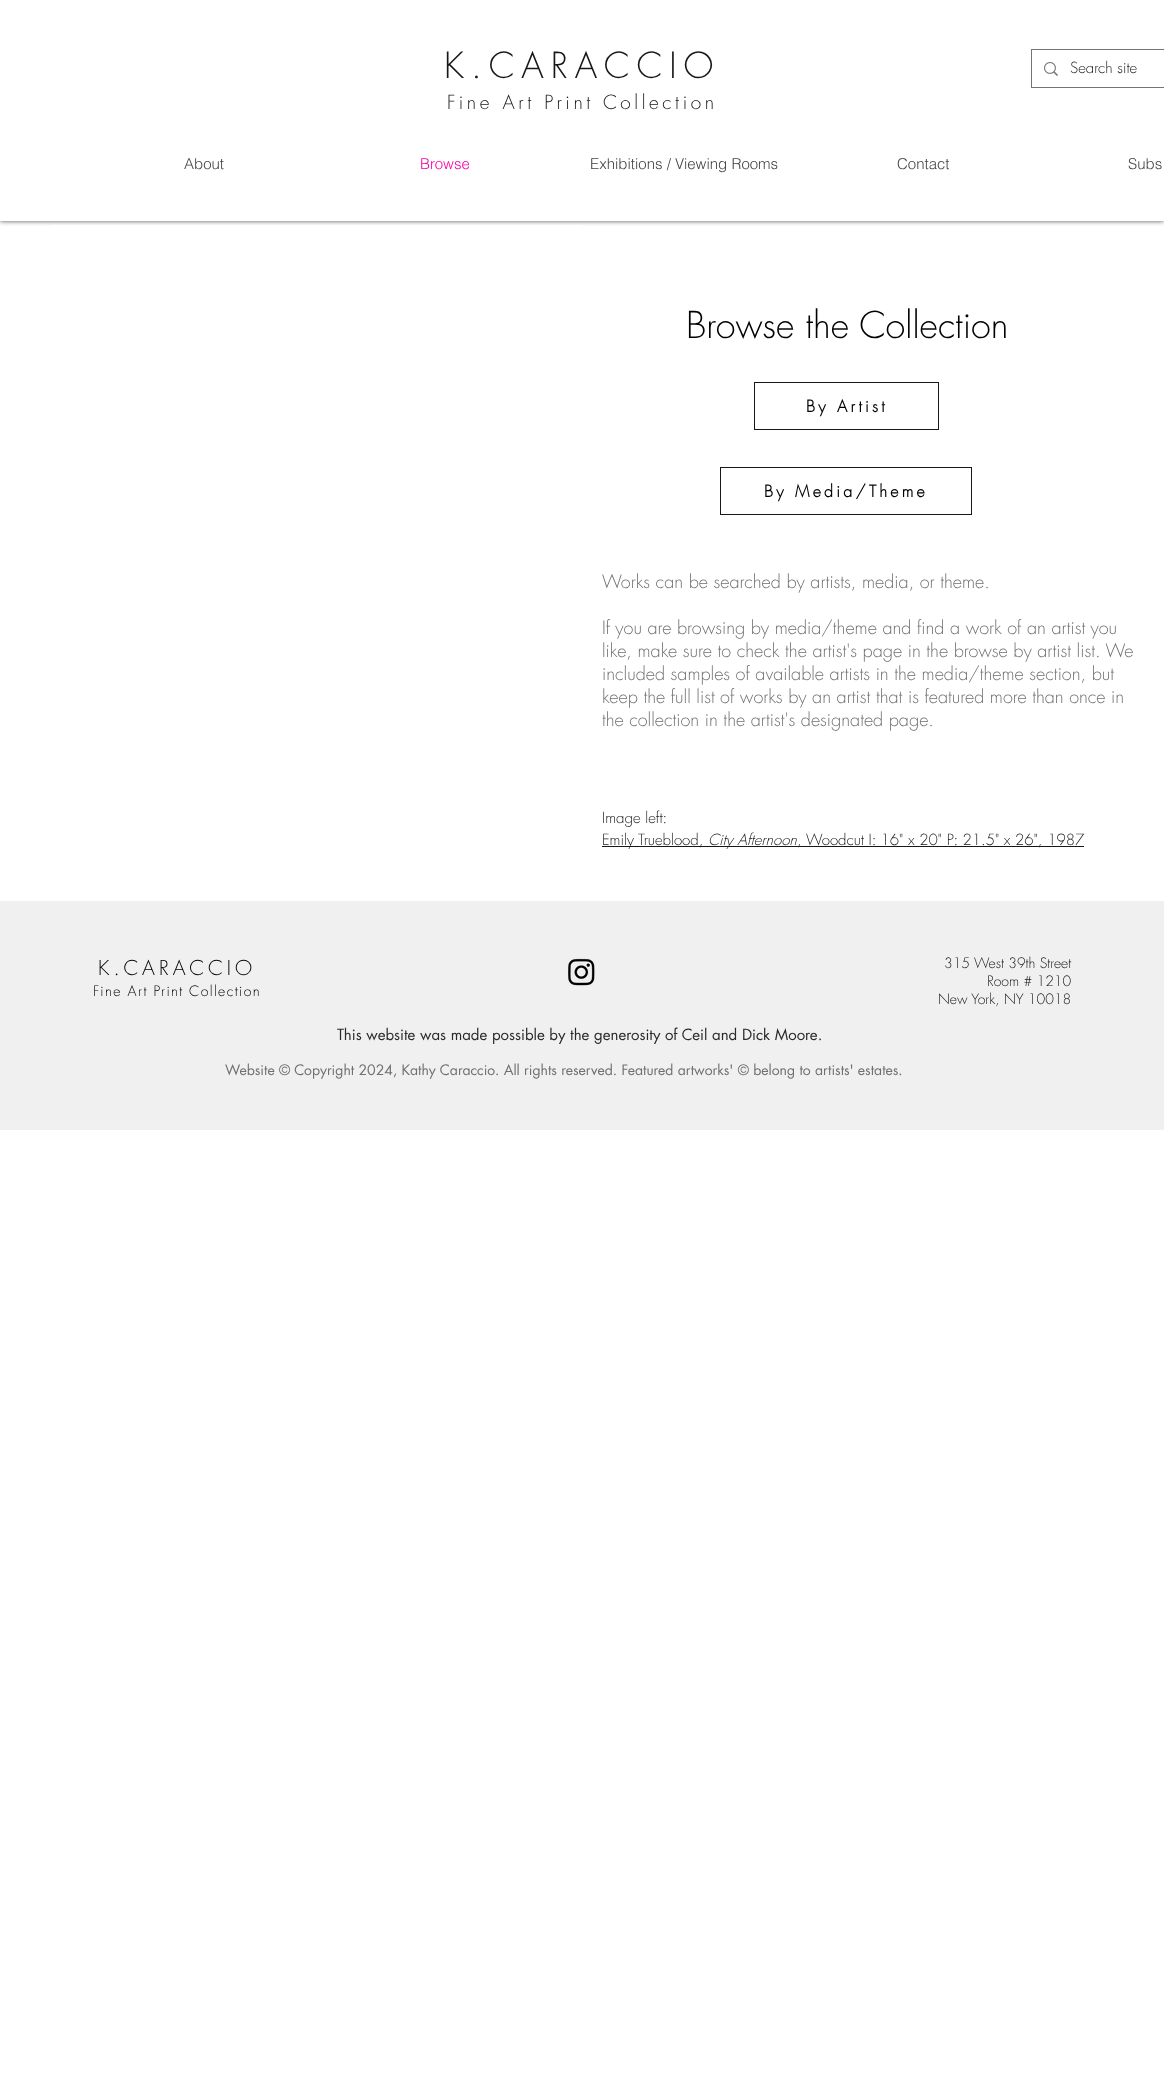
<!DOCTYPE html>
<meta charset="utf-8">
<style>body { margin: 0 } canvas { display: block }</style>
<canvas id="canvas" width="1164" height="2075"></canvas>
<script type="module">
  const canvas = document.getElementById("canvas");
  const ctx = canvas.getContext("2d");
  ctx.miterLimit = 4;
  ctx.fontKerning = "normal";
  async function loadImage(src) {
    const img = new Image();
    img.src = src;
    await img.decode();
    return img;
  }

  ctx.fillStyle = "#ffffff";
  ctx.fillRect(0, 0, 1164, 2075);
  ctx.save();
  ctx.beginPath();
  ctx.rect(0, 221, 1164, 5);
  ctx.clip();
  ctx.fillStyle = "rgba(0, 0, 0, 0.7)";
  ctx.filter = "blur(2.5px)";
  ctx.beginPath();
  ctx.rect(0, 0, 1164, 221);
  ctx.fill();
  ctx.filter = "none";
  ctx.restore();
  ctx.letterSpacing = "7px";
  ctx.font = "300 35px futura";
  ctx.fillStyle = "#171717";
  ctx.fillText("K.CARACCIO", 444, 78);
  ctx.letterSpacing = "3.6px";
  ctx.font = "300 19px futura";
  ctx.fillText("Fine Art Print Collection", 447, 109);
  ctx.strokeStyle = "#747474";
  ctx.strokeRect(1031.5, 49.5, 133, 38);
  ctx.drawImage(await loadImage("img1.png"), 1044, 62, 14, 14);
  ctx.letterSpacing = "0px";
  ctx.font = "300 15px futura";
  ctx.fillText("Search site", 1070, 73);
  ctx.font = "300 15px helvetica";
  ctx.fillStyle = "#444444";
  ctx.fillText("About", 184, 169);
  ctx.fillStyle = "#f605a9";
  ctx.fillText("Browse", 420, 169);
  ctx.fillStyle = "#444444";
  ctx.fillText("Exhibitions / Viewing Rooms", 590, 169);
  ctx.fillText("Contact", 897, 169);
  ctx.fillText("Subs", 1128, 169);
  ctx.fillStyle = "#ffffff";
  ctx.fillRect(52, 225, 530, 1);
  ctx.font = "300 36px futura";
  ctx.fillStyle = "#000000";
  ctx.fillText("Browse the Collection", 686, 338);
  ctx.strokeStyle = "#171717";
  ctx.strokeRect(754.5, 382.5, 184, 47);
  ctx.letterSpacing = "3.25px";
  ctx.font = "bold 16px futura";
  ctx.fillText("By Artist", 806, 412);
  ctx.strokeRect(720.5, 467.5, 251, 47);
  ctx.fillText("By Media/Theme", 764, 497);
  ctx.letterSpacing = "0px";
  ctx.font = "300 18px futura";
  ctx.fillStyle = "#707070";
  ctx.fillText("Works can be searched by artists, media, or theme.", 602, 588);
  ctx.fillText("If you are browsing by media/theme and find a work of an artist you", 602, 634);
  ctx.fillText("like, make sure to check the artist's page in the browse by artist list. We", 602, 657);
  ctx.fillText("included samples of available artists in the media/theme section, but", 602, 680);
  ctx.fillText("keep the full list of works by an artist that is featured more than once in", 602, 703);
  ctx.fillText("the collection in the artist's designated page.", 602, 726);
  ctx.font = "300 15px futura";
  ctx.fillStyle = "#171717";
  ctx.fillText("Image left:", 602, 823);
  ctx.fillRect(602, 846, 482, 1);
  ctx.fillText("Emily Trueblood,", 602, 845);
  ctx.font = "italic 300 15px futura";
  ctx.fillText("City Afternoon", 708, 845);
  ctx.font = "300 15px futura";
  ctx.fillText(",", 797, 845);
  ctx.fillText("Woodcut I: 16\" x 20\" P: 21.5\" x 26\", 1987", 806, 845);
  ctx.fillStyle = "#f0f0f0";
  ctx.fillRect(0, 901, 1164, 229);
  ctx.letterSpacing = "4px";
  ctx.font = "300 20px futura";
  ctx.fillStyle = "#000000";
  ctx.fillText("K.CARACCIO", 98, 975);
  ctx.letterSpacing = "1.4px";
  ctx.font = "300 14px futura";
  ctx.fillText("Fine Art Print Collection", 93, 996);
  ctx.drawImage(await loadImage("img2.png"), 568, 958, 27, 28);
  ctx.letterSpacing = "0px";
  ctx.fillStyle = "#171717";
  ctx.fillText("315 West 39th Street", 944, 968);
  ctx.fillText("Room # 1210", 987, 986);
  ctx.fillText("New York, NY 10018", 938, 1004);
  ctx.font = "15px futura";
  ctx.fillStyle = "#292929";
  ctx.fillText("This website was made possible by the generosity of Ceil and Dick Moore.", 337, 1040);
  ctx.font = "14px futura";
  ctx.fillStyle = "#707070";
  ctx.fillText("Website © Copyright 2024, Kathy Caraccio. All rights reserved. Featured artworks' © belong to artists' estates.", 225, 1075);
</script>
